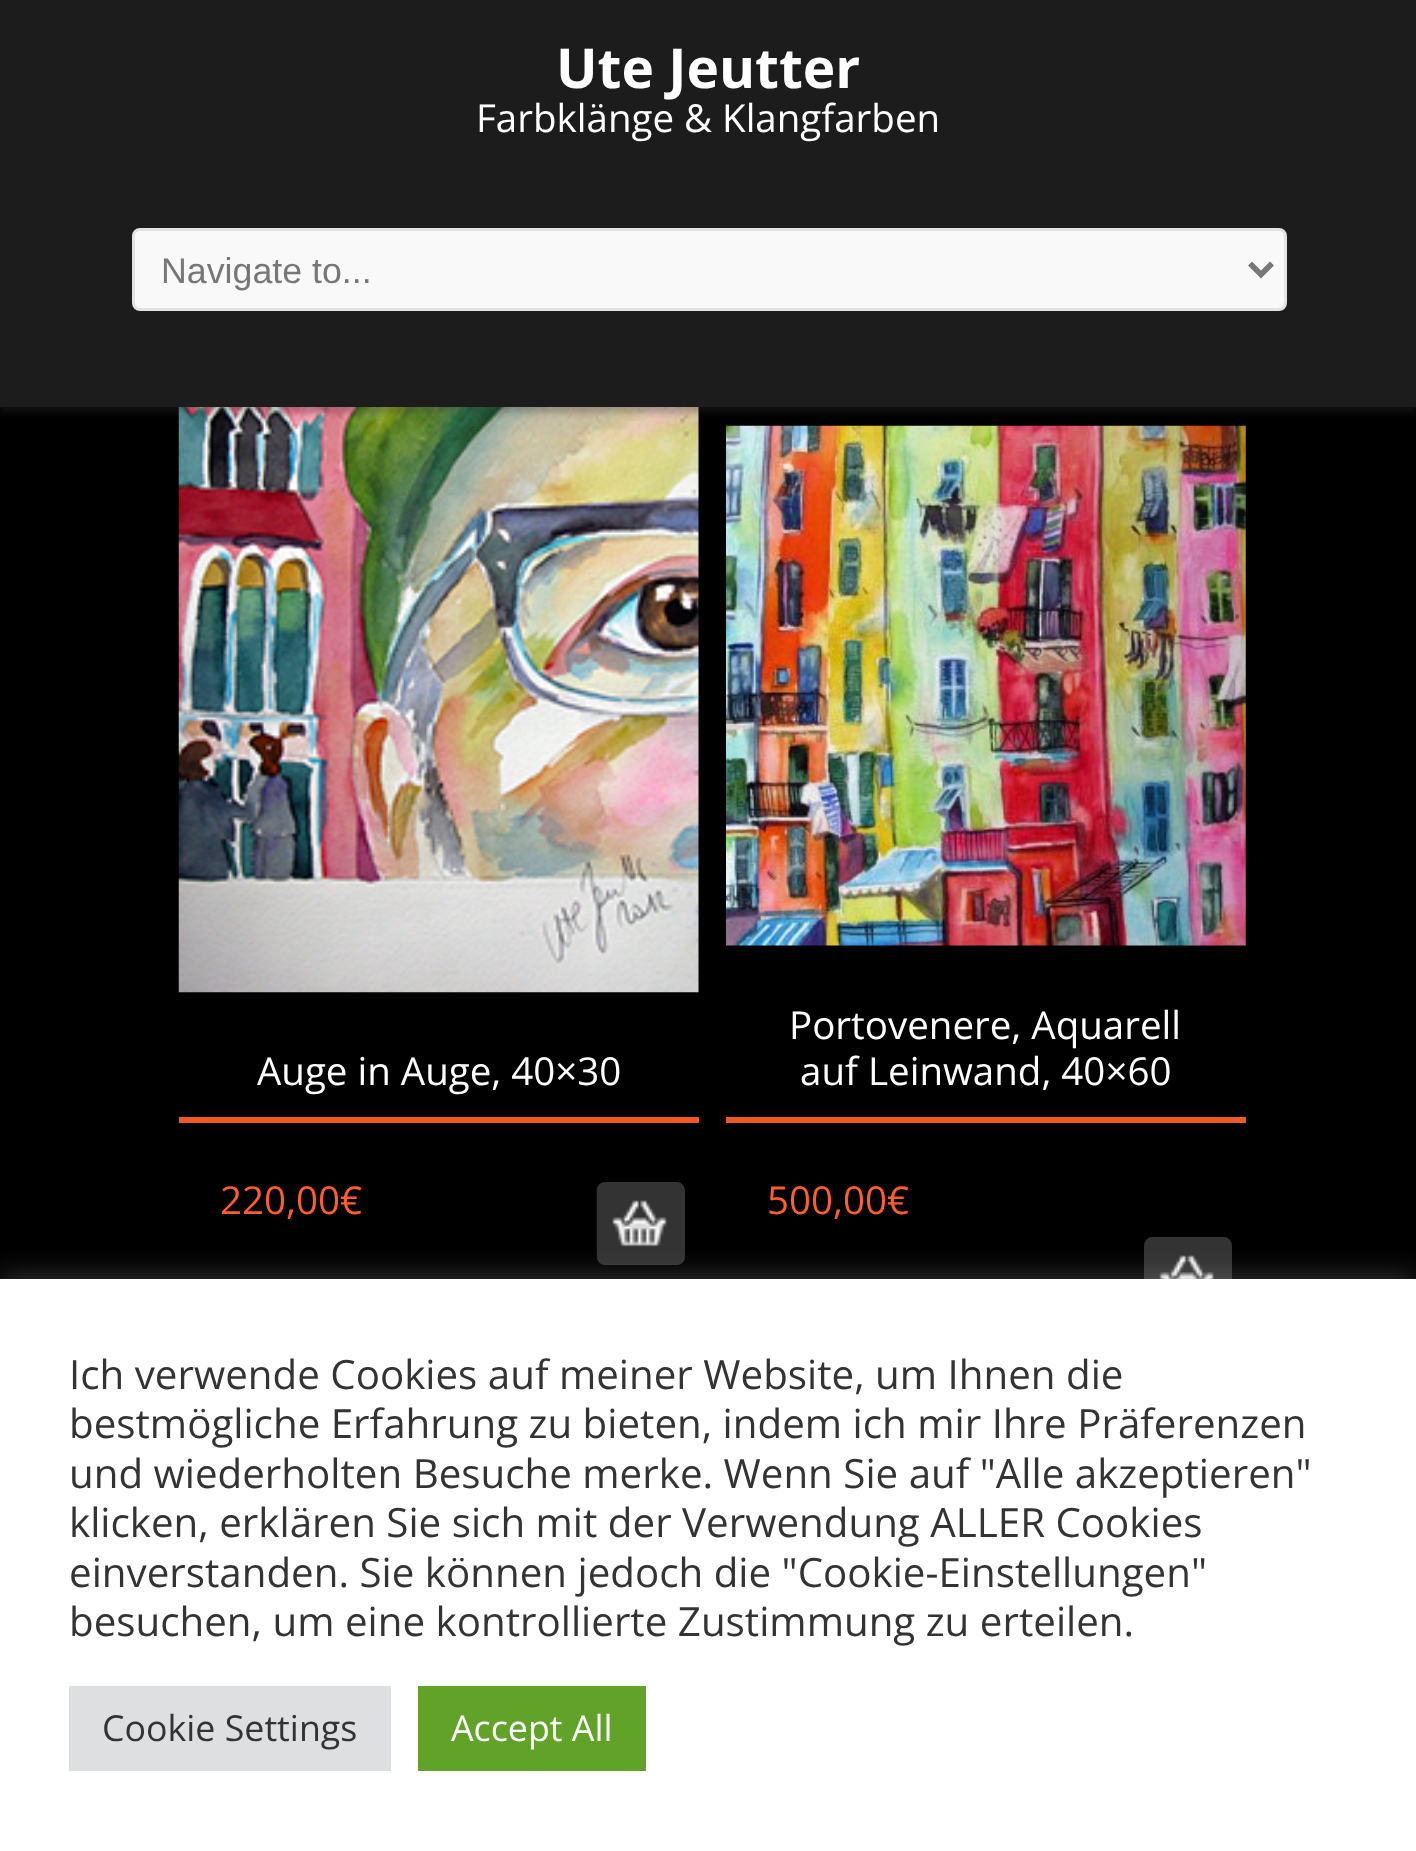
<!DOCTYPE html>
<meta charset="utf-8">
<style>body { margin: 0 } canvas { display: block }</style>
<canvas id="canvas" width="1416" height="1851"></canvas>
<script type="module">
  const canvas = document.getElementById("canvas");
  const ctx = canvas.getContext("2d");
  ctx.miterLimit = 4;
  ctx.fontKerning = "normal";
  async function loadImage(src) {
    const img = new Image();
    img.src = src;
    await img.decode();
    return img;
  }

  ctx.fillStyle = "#000000";
  ctx.fillRect(0, 0, 1416, 1851);
  ctx.drawImage(await loadImage("img1.png"), 178, 407, 521, 586);
  ctx.fillStyle = "rgba(50, 50, 50, 0.3)";
  ctx.filter = "blur(3px)";
  ctx.beginPath();
  ctx.rect(0, 6, 1416, 407);
  ctx.fill();
  ctx.filter = "none";
  ctx.fillStyle = "#1c1c1c";
  ctx.fillRect(0, 0, 1416, 407);
  ctx.font = "bold 55px Open Sans";
  ctx.fillStyle = "#ffffff";
  ctx.fillText("Ute Jeutter", 556, 88);
  ctx.font = "38.5px Open Sans";
  ctx.fillText("Farbklänge & Klangfarben", 476, 132);
  ctx.fillStyle = "#f9f9f9";
  ctx.beginPath();
  ctx.roundRect(133.5, 229.5, 1152, 80, 6.5);
  ctx.fill();
  ctx.strokeStyle = "#e3e3e3";
  ctx.lineWidth = 3;
  ctx.stroke();
  ctx.beginPath();
  ctx.moveTo(1250, 263.5);
  ctx.lineTo(1261, 274.5);
  ctx.lineTo(1272, 263.5);
  ctx.strokeStyle = "#777777";
  ctx.lineWidth = 5.5;
  ctx.stroke();
  ctx.font = "35.75px Liberation Sans";
  ctx.fillStyle = "#777777";
  ctx.fillText("Navigate to...", 161, 283);
  ctx.fillStyle = "#f15a23";
  ctx.fillRect(179, 1117, 520, 6);
  ctx.font = "38.5px Open Sans";
  ctx.fillStyle = "#ffffff";
  ctx.fillText("Auge in Auge, 40×30", 257, 1085);
  ctx.fillStyle = "#ff5d2a";
  ctx.fillText("220,00€", 220, 1214);
  ctx.fillStyle = "#333333";
  ctx.beginPath();
  ctx.roundRect(597, 1183, 88, 82, 8);
  ctx.fill();
  ctx.drawImage(await loadImage("img2.png"), 596, 1182, 89, 78);
  ctx.drawImage(await loadImage("img3.png"), 726, 425, 520, 521);
  ctx.fillStyle = "#f15a23";
  ctx.fillRect(726, 1117, 520, 6);
  ctx.fillStyle = "#ffffff";
  ctx.fillText("Portovenere, Aquarell", 789, 1039);
  ctx.fillText("auf Leinwand, 40×60", 800, 1085);
  ctx.fillStyle = "#ff5d2a";
  ctx.fillText("500,00€", 767, 1214);
  ctx.drawImage(await loadImage("img4.png"), 1144, 1237, 88, 42);
  ctx.fillStyle = "rgba(172, 171, 171, 0.3)";
  ctx.filter = "blur(14px)";
  ctx.beginPath();
  ctx.rect(0, 1276, 1416, 575);
  ctx.fill();
  ctx.filter = "none";
  ctx.fillStyle = "#ffffff";
  ctx.fillRect(0, 1279, 1416, 572);
  ctx.font = "40.3px Open Sans";
  ctx.fillStyle = "#333333";
  ctx.fillText("Ich verwende Cookies auf meiner Website, um Ihnen die", 69, 1389);
  ctx.fillText("bestmögliche Erfahrung zu bieten, indem ich mir Ihre Präferenzen", 69, 1438);
  ctx.fillText("und wiederholten Besuche merke. Wenn Sie auf \"Alle akzeptieren\"", 69, 1488);
  ctx.fillText("klicken, erklären Sie sich mit der Verwendung ALLER Cookies", 69, 1537);
  ctx.fillText("einverstanden. Sie können jedoch die \"Cookie-Einstellungen\"", 69, 1587);
  ctx.fillText("besuchen, um eine kontrollierte Zustimmung zu erteilen.", 69, 1636);
  ctx.fillStyle = "#dedfe0";
  ctx.fillRect(69, 1686, 322, 85);
  ctx.font = "35.75px Open Sans";
  ctx.fillStyle = "#333333";
  ctx.fillText("Cookie Settings", 102, 1741);
  ctx.fillStyle = "#61a229";
  ctx.fillRect(418, 1686, 228, 85);
  ctx.fillStyle = "#ffffff";
  ctx.fillText("Accept All", 451, 1741);
</script>
